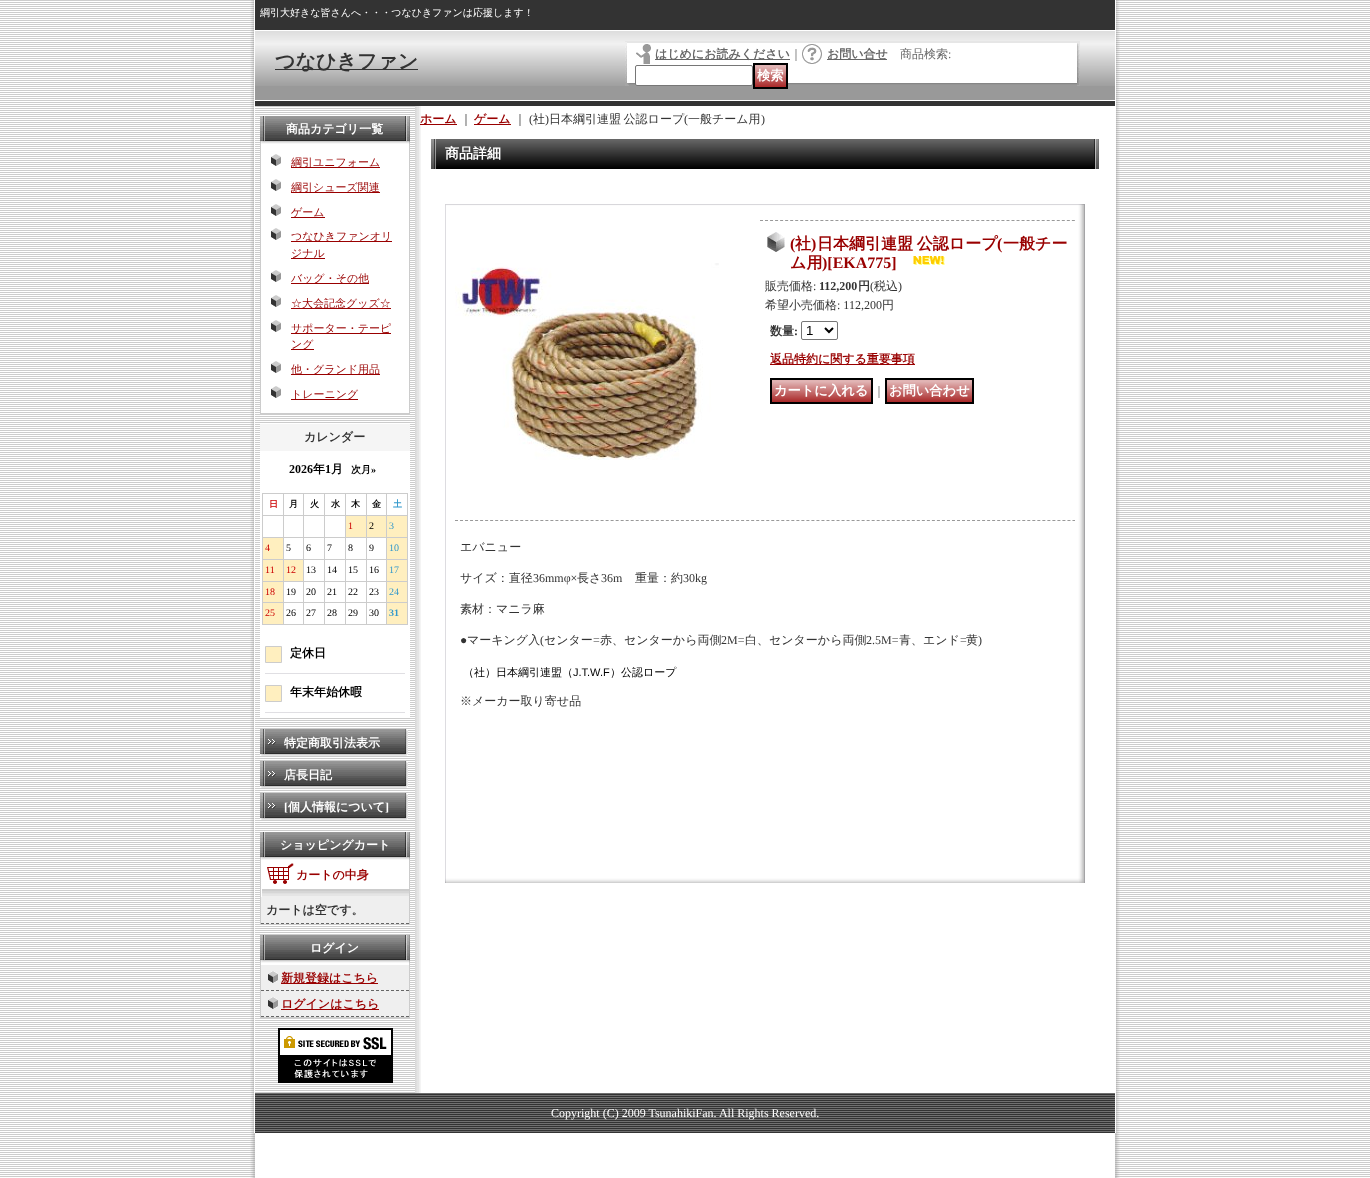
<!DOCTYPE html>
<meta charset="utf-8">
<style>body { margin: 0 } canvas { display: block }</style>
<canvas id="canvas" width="1370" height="1178"></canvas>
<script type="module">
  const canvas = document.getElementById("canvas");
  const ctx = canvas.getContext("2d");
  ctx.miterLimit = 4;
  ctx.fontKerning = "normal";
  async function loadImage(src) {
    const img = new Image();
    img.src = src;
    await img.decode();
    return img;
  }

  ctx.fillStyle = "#ffffff";
  ctx.fillRect(0, 0, 1370, 1178);
  ctx.drawImage(await loadImage("img1.png"), 0, 0, 1370, 1178);
  ctx.fillRect(254, 0, 862, 1133);
  ctx.fillStyle = "#333333";
  ctx.fillRect(255, 0, 860, 30);
  ctx.font = "500 10px WenQuanYi Zen Hei";
  ctx.fillStyle = "#ffffff";
  ctx.fillText("綱引大好きな皆さんへ・・・つなひきファンは応援します！", 260, 16);
  ctx.fillStyle = "#999999";
  ctx.fillRect(255, 86, 860, 14);
  ctx.drawImage(await loadImage("img2.png"), 255, 31, 860, 55);
  ctx.fillStyle = "#333333";
  ctx.fillRect(275, 69, 143, 1);
  ctx.font = "bold 20px WenQuanYi Zen Hei";
  ctx.fillText("つなひきファン", 275, 68);
  ctx.drawImage(await loadImage("img3.png"), 625, 41, 455, 45);
  ctx.drawImage(await loadImage("img4.png"), 636, 44, 15, 20);
  ctx.fillStyle = "#666666";
  ctx.fillRect(655, 59, 135, 1);
  ctx.font = "bold 12px WenQuanYi Zen Hei";
  ctx.fillText("はじめにお読みください", 655, 58);
  ctx.font = "500 12px WenQuanYi Zen Hei";
  ctx.fillText("｜", 790, 58);
  ctx.drawImage(await loadImage("img5.png"), 802, 44, 20, 20);
  ctx.fillRect(827, 59, 60, 1);
  ctx.font = "bold 12px WenQuanYi Zen Hei";
  ctx.fillText("お問い合せ", 827, 58);
  ctx.font = "500 12px WenQuanYi Zen Hei";
  ctx.fillText("商品検索", 900, 58);
  ctx.font = "12px Liberation Serif";
  ctx.fillText(":", 948, 58);
  ctx.fillStyle = "#ffffff";
  ctx.beginPath();
  ctx.roundRect(635.5, 65.5, 117, 20, 1.5);
  ctx.fill();
  ctx.strokeStyle = "#767676";
  ctx.stroke();
  ctx.drawImage(await loadImage("img6.png"), 755, 65, 31, 22);
  ctx.strokeStyle = "#000000";
  ctx.lineWidth = 2;
  ctx.strokeRect(754, 64, 33, 24);
  ctx.font = "bold 13.25px WenQuanYi Zen Hei";
  ctx.fillText("検索", 757, 80);
  ctx.fillStyle = "#333333";
  ctx.fillRect(255, 101, 860, 5);
  ctx.drawImage(await loadImage("img7.png"), 255, 106, 160, 987);
  ctx.drawImage(await loadImage("img8.png"), 260, 116, 150, 30);
  ctx.font = "bold 12px WenQuanYi Zen Hei";
  ctx.fillStyle = "#ffffff";
  ctx.fillText("商品カテゴリ一覧", 286, 133);
  ctx.fillRect(261, 146, 148, 267);
  ctx.fillStyle = "#cccccc";
  ctx.fillRect(409, 146, 1, 268);
  ctx.fillRect(260, 413, 150, 1);
  ctx.fillRect(260, 146, 1, 268);
  ctx.drawImage(await loadImage("img9.png"), 271, 154, 10, 12);
  ctx.fillStyle = "#990000";
  ctx.fillRect(291, 167, 89, 1);
  ctx.font = "500 11px WenQuanYi Zen Hei";
  ctx.fillText("綱引ユニフォーム", 291, 166);
  ctx.drawImage(await loadImage("img9.png"), 271, 179, 10, 12);
  ctx.fillRect(291, 192, 89, 1);
  ctx.fillText("綱引シューズ関連", 291, 191);
  ctx.drawImage(await loadImage("img9.png"), 271, 204, 10, 12);
  ctx.fillRect(291, 217, 34, 1);
  ctx.fillText("ゲーム", 291, 216);
  ctx.drawImage(await loadImage("img9.png"), 271, 228, 10, 12);
  ctx.fillRect(291, 241, 101, 1);
  ctx.fillText("つなひきファンオリ", 291, 240);
  ctx.fillRect(291, 258, 34, 1);
  ctx.fillText("ジナル", 291, 257);
  ctx.drawImage(await loadImage("img9.png"), 271, 270, 10, 12);
  ctx.fillRect(291, 283, 78, 1);
  ctx.fillText("バッグ・その他", 291, 282);
  ctx.drawImage(await loadImage("img9.png"), 271, 295, 10, 12);
  ctx.fillRect(291, 308, 100, 1);
  ctx.fillText("☆大会記念グッズ☆", 291, 307);
  ctx.drawImage(await loadImage("img9.png"), 271, 320, 10, 12);
  ctx.fillRect(291, 333, 100, 1);
  ctx.fillText("サポーター・テーピ", 291, 332);
  ctx.fillRect(291, 349, 23, 1);
  ctx.fillText("ング", 291, 348);
  ctx.drawImage(await loadImage("img9.png"), 271, 361, 10, 12);
  ctx.fillRect(291, 374, 89, 1);
  ctx.fillText("他・グランド用品", 291, 373);
  ctx.drawImage(await loadImage("img9.png"), 271, 386, 10, 12);
  ctx.fillRect(291, 399, 67, 1);
  ctx.fillText("トレーニング", 291, 398);
  ctx.fillStyle = "#ffffff";
  ctx.fillRect(260, 452, 150, 265);
  ctx.fillStyle = "#f5f5f5";
  ctx.fillRect(260, 424, 150, 27);
  ctx.font = "bold 12px WenQuanYi Zen Hei";
  ctx.fillStyle = "#333333";
  ctx.fillText("カレンダー", 304, 441);
  ctx.font = "bold 12px Liberation Serif";
  ctx.fillStyle = "#000000";
  ctx.fillText("2026", 289, 473);
  ctx.font = "bold 12px WenQuanYi Zen Hei";
  ctx.fillText("年", 313, 473);
  ctx.font = "bold 12px Liberation Serif";
  ctx.fillText("1", 325, 473);
  ctx.font = "bold 12px WenQuanYi Zen Hei";
  ctx.fillText("月", 331, 473);
  ctx.font = "bold 10px WenQuanYi Zen Hei";
  ctx.fillText("次月", 351, 473);
  ctx.font = "bold 10px Liberation Serif";
  ctx.fillText("»", 371, 473);
  ctx.fillStyle = "#cccccc";
  ctx.fillRect(386, 493, 22, 1);
  ctx.fillRect(386, 515, 22, 1);
  ctx.fillRect(386, 537, 22, 1);
  ctx.fillRect(386, 559, 22, 1);
  ctx.fillRect(386, 581, 22, 1);
  ctx.fillRect(386, 602, 22, 1);
  ctx.fillRect(407, 602, 1, 23);
  ctx.fillRect(386, 624, 22, 1);
  ctx.fillRect(386, 602, 1, 23);
  ctx.fillRect(366, 602, 21, 1);
  ctx.fillRect(386, 581, 1, 22);
  ctx.fillRect(366, 581, 21, 1);
  ctx.fillRect(386, 559, 1, 23);
  ctx.fillRect(366, 559, 21, 1);
  ctx.fillRect(386, 537, 1, 23);
  ctx.fillRect(366, 537, 21, 1);
  ctx.fillRect(386, 515, 1, 23);
  ctx.fillRect(366, 515, 21, 1);
  ctx.fillRect(386, 493, 1, 23);
  ctx.fillRect(366, 493, 21, 1);
  ctx.fillRect(366, 624, 21, 1);
  ctx.fillRect(366, 602, 1, 23);
  ctx.fillRect(345, 602, 22, 1);
  ctx.fillRect(366, 581, 1, 22);
  ctx.fillRect(345, 581, 22, 1);
  ctx.fillRect(366, 559, 1, 23);
  ctx.fillRect(345, 559, 22, 1);
  ctx.fillRect(366, 537, 1, 23);
  ctx.fillRect(345, 537, 22, 1);
  ctx.fillRect(366, 515, 1, 23);
  ctx.fillRect(345, 515, 22, 1);
  ctx.fillRect(366, 493, 1, 23);
  ctx.fillRect(345, 493, 22, 1);
  ctx.fillRect(345, 624, 22, 1);
  ctx.fillRect(345, 602, 1, 23);
  ctx.fillRect(324, 602, 22, 1);
  ctx.fillRect(345, 581, 1, 22);
  ctx.fillRect(324, 581, 22, 1);
  ctx.fillRect(345, 559, 1, 23);
  ctx.fillRect(324, 559, 22, 1);
  ctx.fillRect(345, 537, 1, 23);
  ctx.fillRect(324, 537, 22, 1);
  ctx.fillRect(345, 515, 1, 23);
  ctx.fillRect(324, 515, 22, 1);
  ctx.fillRect(345, 493, 1, 23);
  ctx.fillRect(324, 493, 22, 1);
  ctx.fillRect(324, 624, 22, 1);
  ctx.fillRect(324, 602, 1, 23);
  ctx.fillRect(303, 602, 22, 1);
  ctx.fillRect(324, 581, 1, 22);
  ctx.fillRect(303, 581, 22, 1);
  ctx.fillRect(324, 559, 1, 23);
  ctx.fillRect(303, 559, 22, 1);
  ctx.fillRect(324, 537, 1, 23);
  ctx.fillRect(303, 537, 22, 1);
  ctx.fillRect(324, 515, 1, 23);
  ctx.fillRect(303, 515, 22, 1);
  ctx.fillRect(324, 493, 1, 23);
  ctx.fillRect(303, 493, 22, 1);
  ctx.fillRect(303, 624, 22, 1);
  ctx.fillRect(303, 602, 1, 23);
  ctx.fillRect(283, 602, 21, 1);
  ctx.fillRect(303, 581, 1, 22);
  ctx.fillRect(283, 581, 21, 1);
  ctx.fillRect(303, 559, 1, 23);
  ctx.fillRect(283, 559, 21, 1);
  ctx.fillRect(303, 537, 1, 23);
  ctx.fillRect(283, 537, 21, 1);
  ctx.fillRect(303, 515, 1, 23);
  ctx.fillRect(283, 515, 21, 1);
  ctx.fillRect(303, 493, 1, 23);
  ctx.fillRect(283, 493, 21, 1);
  ctx.fillRect(283, 624, 21, 1);
  ctx.fillRect(283, 602, 1, 23);
  ctx.fillRect(262, 602, 22, 1);
  ctx.fillRect(283, 581, 1, 22);
  ctx.fillRect(262, 581, 22, 1);
  ctx.fillRect(283, 559, 1, 23);
  ctx.fillRect(262, 559, 22, 1);
  ctx.fillRect(283, 537, 1, 23);
  ctx.fillRect(262, 537, 22, 1);
  ctx.fillRect(283, 515, 1, 23);
  ctx.fillRect(262, 515, 22, 1);
  ctx.fillRect(283, 493, 1, 23);
  ctx.fillRect(262, 493, 22, 1);
  ctx.fillRect(262, 624, 22, 1);
  ctx.fillRect(262, 602, 1, 23);
  ctx.fillRect(262, 581, 1, 22);
  ctx.fillRect(262, 559, 1, 23);
  ctx.fillRect(262, 537, 1, 23);
  ctx.fillRect(262, 515, 1, 23);
  ctx.fillRect(262, 493, 1, 23);
  ctx.font = "bold 9px WenQuanYi Zen Hei";
  ctx.fillStyle = "#cc0000";
  ctx.fillText("日", 269, 507);
  ctx.fillStyle = "#000000";
  ctx.fillText("月", 289, 507);
  ctx.fillText("火", 310, 507);
  ctx.fillText("水", 331, 507);
  ctx.fillText("木", 351, 507);
  ctx.fillText("金", 372, 507);
  ctx.fillStyle = "#cccccc";
  ctx.fillRect(407, 581, 1, 22);
  ctx.fillRect(407, 559, 1, 23);
  ctx.fillRect(407, 537, 1, 23);
  ctx.fillRect(407, 515, 1, 23);
  ctx.fillRect(407, 493, 1, 23);
  ctx.fillStyle = "#3399cc";
  ctx.fillText("土", 393, 507);
  ctx.fillStyle = "#ffefbf";
  ctx.fillRect(346, 516, 20, 21);
  ctx.font = "10px Liberation Serif";
  ctx.fillStyle = "#cc0000";
  ctx.fillText("1", 348, 529);
  ctx.fillStyle = "#ffefbf";
  ctx.fillRect(367, 516, 19, 21);
  ctx.fillStyle = "#000000";
  ctx.fillText("2", 369, 529);
  ctx.fillStyle = "#ffefbf";
  ctx.fillRect(387, 516, 20, 21);
  ctx.fillStyle = "#3399cc";
  ctx.fillText("3", 389, 529);
  ctx.fillStyle = "#ffefbf";
  ctx.fillRect(263, 538, 20, 21);
  ctx.fillStyle = "#cc0000";
  ctx.fillText("4", 265, 551);
  ctx.fillStyle = "#000000";
  ctx.fillText("5", 286, 551);
  ctx.fillText("6", 306, 551);
  ctx.fillText("7", 327, 551);
  ctx.fillText("8", 348, 551);
  ctx.fillText("9", 369, 551);
  ctx.fillStyle = "#ffefbf";
  ctx.fillRect(387, 538, 20, 21);
  ctx.fillStyle = "#3399cc";
  ctx.fillText("10", 389, 551);
  ctx.fillStyle = "#ffefbf";
  ctx.fillRect(263, 560, 20, 21);
  ctx.fillStyle = "#cc0000";
  ctx.fillText("11", 265, 573);
  ctx.fillStyle = "#ffefbf";
  ctx.fillRect(284, 560, 19, 21);
  ctx.fillStyle = "#cc0000";
  ctx.fillText("12", 286, 573);
  ctx.fillStyle = "#000000";
  ctx.fillText("13", 306, 573);
  ctx.fillText("14", 327, 573);
  ctx.fillText("15", 348, 573);
  ctx.fillText("16", 369, 573);
  ctx.fillStyle = "#ffefbf";
  ctx.fillRect(387, 560, 20, 21);
  ctx.fillStyle = "#3399cc";
  ctx.fillText("17", 389, 573);
  ctx.fillStyle = "#ffefbf";
  ctx.fillRect(263, 582, 20, 20);
  ctx.fillStyle = "#cc0000";
  ctx.fillText("18", 265, 595);
  ctx.fillStyle = "#000000";
  ctx.fillText("19", 286, 595);
  ctx.fillText("20", 306, 595);
  ctx.fillText("21", 327, 595);
  ctx.fillText("22", 348, 595);
  ctx.fillText("23", 369, 595);
  ctx.fillStyle = "#ffefbf";
  ctx.fillRect(387, 582, 20, 20);
  ctx.fillStyle = "#3399cc";
  ctx.fillText("24", 389, 595);
  ctx.fillStyle = "#ffefbf";
  ctx.fillRect(263, 603, 20, 21);
  ctx.fillStyle = "#cc0000";
  ctx.fillText("25", 265, 616);
  ctx.fillStyle = "#000000";
  ctx.fillText("26", 286, 616);
  ctx.fillText("27", 306, 616);
  ctx.fillText("28", 327, 616);
  ctx.fillText("29", 348, 616);
  ctx.fillText("30", 369, 616);
  ctx.fillStyle = "#ffefbf";
  ctx.fillRect(387, 603, 20, 21);
  ctx.font = "bold 10px Liberation Serif";
  ctx.fillStyle = "#3399cc";
  ctx.fillText("31", 389, 616);
  ctx.fillStyle = "#e0dfe3";
  ctx.fillRect(265, 673, 140, 1);
  ctx.fillStyle = "#ffefbf";
  ctx.beginPath();
  ctx.rect(265.5, 646.5, 16, 16);
  ctx.fill();
  ctx.strokeStyle = "#cccccc";
  ctx.lineWidth = 1;
  ctx.stroke();
  ctx.font = "bold 12px WenQuanYi Zen Hei";
  ctx.fillStyle = "#000000";
  ctx.fillText("定休日", 290, 657);
  ctx.fillStyle = "#e0dfe3";
  ctx.fillRect(265, 712, 140, 1);
  ctx.fillStyle = "#ffefbf";
  ctx.beginPath();
  ctx.rect(265.5, 685.5, 16, 16);
  ctx.fill();
  ctx.stroke();
  ctx.fillStyle = "#000000";
  ctx.fillText("年末年始休暇", 290, 696);
  ctx.drawImage(await loadImage("img10.png"), 260, 729, 148, 27);
  ctx.fillStyle = "#ffffff";
  ctx.fillText("特定商取引法表示", 284, 747);
  ctx.drawImage(await loadImage("img10.png"), 260, 761, 148, 27);
  ctx.fillText("店長日記", 284, 779);
  ctx.drawImage(await loadImage("img10.png"), 260, 793, 148, 27);
  ctx.font = "bold 12px Liberation Serif";
  ctx.fillText("[", 284, 811);
  ctx.font = "bold 12px WenQuanYi Zen Hei";
  ctx.fillText("個人情報について", 288, 811);
  ctx.font = "bold 12px Liberation Serif";
  ctx.fillText("]", 385, 811);
  ctx.drawImage(await loadImage("img8.png"), 260, 832, 150, 30);
  ctx.font = "bold 12px WenQuanYi Zen Hei";
  ctx.fillText("ショッピングカート", 280, 849);
  ctx.fillRect(261, 862, 148, 35);
  ctx.fillStyle = "#cccccc";
  ctx.fillRect(409, 862, 1, 63);
  ctx.fillRect(260, 862, 1, 63);
  ctx.drawImage(await loadImage("img11.png"), 262, 863, 147, 34);
  ctx.fillStyle = "#990000";
  ctx.fillText("カートの中身", 296, 879);
  ctx.fillStyle = "#efefef";
  ctx.fillRect(261, 897, 148, 27);
  ctx.beginPath();
  ctx.moveTo(261, 923.5);
  ctx.lineTo(409, 923.5);
  ctx.strokeStyle = "#666666";
  ctx.setLineDash([3, 2]);
  ctx.stroke();
  ctx.fillStyle = "#333333";
  ctx.fillText("カートは空です。", 266, 914);
  ctx.drawImage(await loadImage("img8.png"), 260, 935, 150, 30);
  ctx.fillStyle = "#ffffff";
  ctx.fillText("ログイン", 310, 952);
  ctx.fillStyle = "#cccccc";
  ctx.fillRect(409, 965, 1, 53);
  ctx.fillRect(260, 1017, 150, 1);
  ctx.fillRect(260, 965, 1, 53);
  ctx.fillStyle = "#efefef";
  ctx.fillRect(261, 965, 148, 52);
  ctx.beginPath();
  ctx.moveTo(261, 990.5);
  ctx.lineTo(409, 990.5);
  ctx.stroke();
  ctx.drawImage(await loadImage("img12.png"), 268, 971, 10, 12);
  ctx.fillStyle = "#990000";
  ctx.fillRect(281, 983, 97, 1);
  ctx.fillText("新規登録はこちら", 281, 982);
  ctx.beginPath();
  ctx.moveTo(261, 1016.5);
  ctx.lineTo(409, 1016.5);
  ctx.stroke();
  ctx.drawImage(await loadImage("img12.png"), 268, 997, 10, 12);
  ctx.fillRect(281, 1009, 98, 1);
  ctx.fillText("ログインはこちら", 281, 1008);
  ctx.drawImage(await loadImage("img13.png"), 278, 1028, 115, 55);
  ctx.drawImage(await loadImage("img14.png"), 415, 106, 6, 987);
  ctx.fillRect(420, 124, 37, 1);
  ctx.fillText("ホーム", 420, 123);
  ctx.font = "500 12px WenQuanYi Zen Hei";
  ctx.fillStyle = "#333333";
  ctx.fillText("｜", 460, 123);
  ctx.fillStyle = "#990000";
  ctx.fillRect(474, 124, 37, 1);
  ctx.font = "bold 12px WenQuanYi Zen Hei";
  ctx.fillText("ゲーム", 474, 123);
  ctx.font = "500 12px WenQuanYi Zen Hei";
  ctx.fillStyle = "#333333";
  ctx.fillText("｜", 514, 123);
  ctx.font = "12px Liberation Serif";
  ctx.fillText("(", 529, 123);
  ctx.font = "500 12px WenQuanYi Zen Hei";
  ctx.fillText("社", 533, 123);
  ctx.font = "12px Liberation Serif";
  ctx.fillText(")", 545, 123);
  ctx.wordSpacing = "-1px";
  ctx.font = "500 12px WenQuanYi Zen Hei";
  ctx.fillText("日本綱引連盟 公認ロープ", 549, 123);
  ctx.wordSpacing = "0px";
  ctx.font = "12px Liberation Serif";
  ctx.fillText("(", 684, 123);
  ctx.font = "500 12px WenQuanYi Zen Hei";
  ctx.fillText("一般チーム用", 688, 123);
  ctx.font = "12px Liberation Serif";
  ctx.fillText(")", 761, 123);
  ctx.drawImage(await loadImage("img15.png"), 431, 139, 668, 30);
  ctx.font = "bold 14px WenQuanYi Zen Hei";
  ctx.fillStyle = "#ffffff";
  ctx.fillText("商品詳細", 445, 158);
  ctx.drawImage(await loadImage("img16.png"), 445, 204, 640, 6);
  ctx.drawImage(await loadImage("img17.png"), 445, 210, 640, 658);
  ctx.drawImage(await loadImage("img18.png"), 455, 263, 264, 197);
  ctx.beginPath();
  ctx.moveTo(760, 220.5);
  ctx.lineTo(1075, 220.5);
  ctx.strokeStyle = "#999999";
  ctx.setLineDash([3, 2.03]);
  ctx.stroke();
  ctx.drawImage(await loadImage("img19.png"), 767, 232, 18, 20);
  ctx.font = "bold 16px Liberation Serif";
  ctx.fillStyle = "#990000";
  ctx.fillText("(", 790, 249);
  ctx.font = "bold 16px WenQuanYi Zen Hei";
  ctx.fillText("社", 795, 249);
  ctx.font = "bold 16px Liberation Serif";
  ctx.fillText(")", 811, 249);
  ctx.wordSpacing = "-1px";
  ctx.font = "bold 16px WenQuanYi Zen Hei";
  ctx.fillText("日本綱引連盟 公認ロープ", 817, 249);
  ctx.wordSpacing = "0px";
  ctx.font = "bold 16px Liberation Serif";
  ctx.fillText("(", 997, 249);
  ctx.font = "bold 16px WenQuanYi Zen Hei";
  ctx.fillText("一般チー", 1003, 249);
  ctx.fillText("ム用", 790, 268);
  ctx.font = "bold 16px Liberation Serif";
  ctx.fillText(")[EKA775]", 822, 268);
  ctx.drawImage(await loadImage("img20.png"), 913, 256, 32, 9);
  ctx.font = "500 12px WenQuanYi Zen Hei";
  ctx.fillStyle = "#333333";
  ctx.fillText("販売価格", 765, 290);
  ctx.font = "12px Liberation Serif";
  ctx.fillText(":", 813, 290);
  ctx.font = "bold 12px Liberation Serif";
  ctx.fillText("112,200", 819, 290);
  ctx.font = "bold 12px WenQuanYi Zen Hei";
  ctx.fillText("円", 858, 290);
  ctx.font = "12px Liberation Serif";
  ctx.fillText("(", 870, 290);
  ctx.font = "500 12px WenQuanYi Zen Hei";
  ctx.fillText("税込", 874, 290);
  ctx.font = "12px Liberation Serif";
  ctx.fillText(")", 898, 290);
  ctx.font = "500 12px WenQuanYi Zen Hei";
  ctx.fillText("希望小売価格", 765, 309);
  ctx.font = "12px Liberation Serif";
  ctx.fillText(": 112,200", 837, 309);
  ctx.font = "500 12px WenQuanYi Zen Hei";
  ctx.fillText("円", 882, 309);
  ctx.font = "bold 12px WenQuanYi Zen Hei";
  ctx.fillText("数量", 770, 335);
  ctx.font = "bold 12px Liberation Serif";
  ctx.fillText(":", 794, 335);
  ctx.beginPath();
  ctx.roundRect(801.5, 321.5, 36, 18, 1.5);
  ctx.strokeStyle = "#767676";
  ctx.setLineDash([]);
  ctx.stroke();
  ctx.beginPath();
  ctx.moveTo(825, 328);
  ctx.lineTo(829, 332);
  ctx.lineTo(833, 328);
  ctx.strokeStyle = "#000000";
  ctx.lineWidth = 2;
  ctx.stroke();
  ctx.font = "13.25px Liberation Sans";
  ctx.fillStyle = "#000000";
  ctx.fillText("1", 806, 335);
  ctx.fillStyle = "#990000";
  ctx.fillRect(770, 364, 145, 1);
  ctx.font = "bold 12px WenQuanYi Zen Hei";
  ctx.fillText("返品特約に関する重要事項", 770, 363);
  ctx.drawImage(await loadImage("img21.png"), 772, 380, 99, 22);
  ctx.strokeRect(771, 379, 101, 24);
  ctx.font = "bold 13.25px WenQuanYi Zen Hei";
  ctx.fillStyle = "#ffffff";
  ctx.fillText("カートに入れる", 774, 395);
  ctx.font = "500 12px WenQuanYi Zen Hei";
  ctx.fillStyle = "#666666";
  ctx.fillText("｜", 873, 395);
  ctx.drawImage(await loadImage("img22.png"), 887, 380, 85, 22);
  ctx.strokeRect(886, 379, 87, 24);
  ctx.font = "bold 13.25px WenQuanYi Zen Hei";
  ctx.fillStyle = "#ffffff";
  ctx.fillText("お問い合わせ", 889, 395);
  ctx.beginPath();
  ctx.moveTo(455, 520.5);
  ctx.lineTo(1075, 520.5);
  ctx.strokeStyle = "#999999";
  ctx.lineWidth = 1;
  ctx.setLineDash([3, 2.02]);
  ctx.stroke();
  ctx.font = "500 12px WenQuanYi Zen Hei";
  ctx.fillStyle = "#333333";
  ctx.fillText("エバニュー", 460, 551);
  ctx.fillText("サイズ：直径", 460, 582);
  ctx.font = "12px Liberation Serif";
  ctx.fillText("36mmφ×", 533, 582);
  ctx.font = "500 12px WenQuanYi Zen Hei";
  ctx.fillText("長さ", 577, 582);
  ctx.font = "12px Liberation Serif";
  ctx.fillText("36m", 601, 582);
  ctx.font = "500 12px WenQuanYi Zen Hei";
  ctx.fillText("重量：約", 635, 582);
  ctx.font = "12px Liberation Serif";
  ctx.fillText("30kg", 683, 582);
  ctx.font = "500 12px WenQuanYi Zen Hei";
  ctx.fillText("素材：マニラ麻", 460, 613);
  ctx.font = "12px Liberation Serif";
  ctx.fillText("●", 460, 644);
  ctx.font = "500 12px WenQuanYi Zen Hei";
  ctx.fillText("マーキング入", 467, 644);
  ctx.font = "12px Liberation Serif";
  ctx.fillText("(", 540, 644);
  ctx.font = "500 12px WenQuanYi Zen Hei";
  ctx.fillText("センター", 544, 644);
  ctx.font = "12px Liberation Serif";
  ctx.fillText("=", 593, 644);
  ctx.font = "500 12px WenQuanYi Zen Hei";
  ctx.fillText("赤、センターから両側", 600, 644);
  ctx.font = "12px Liberation Serif";
  ctx.fillText("2M=", 721, 644);
  ctx.font = "500 12px WenQuanYi Zen Hei";
  ctx.fillText("白、センターから両側", 745, 644);
  ctx.font = "12px Liberation Serif";
  ctx.fillText("2.5M=", 866, 644);
  ctx.font = "500 12px WenQuanYi Zen Hei";
  ctx.fillText("青、エンド", 899, 644);
  ctx.font = "12px Liberation Serif";
  ctx.fillText("=", 960, 644);
  ctx.font = "500 12px WenQuanYi Zen Hei";
  ctx.fillText("黄", 966, 644);
  ctx.font = "12px Liberation Serif";
  ctx.fillText(")", 978, 644);
  ctx.font = "500 11px WenQuanYi Zen Hei";
  ctx.fillStyle = "#000000";
  ctx.fillText("（社）日本綱引連盟（", 463, 676);
  ctx.font = "11px Liberation Sans";
  ctx.fillText("J.T.W.F", 573, 676);
  ctx.font = "500 11px WenQuanYi Zen Hei";
  ctx.fillText("）公認ロープ", 610, 676);
  ctx.font = "500 12px WenQuanYi Zen Hei";
  ctx.fillStyle = "#333333";
  ctx.fillText("※メーカー取り寄せ品", 460, 705);
  ctx.drawImage(await loadImage("img23.png"), 445, 868, 640, 15);
  ctx.drawImage(await loadImage("img24.png"), 255, 1093, 860, 40);
  ctx.font = "12px Liberation Serif";
  ctx.fillStyle = "#ffffff";
  ctx.fillText("Copyright (C) 2009 TsunahikiFan. All Rights Reserved.", 551, 1117);
</script>
